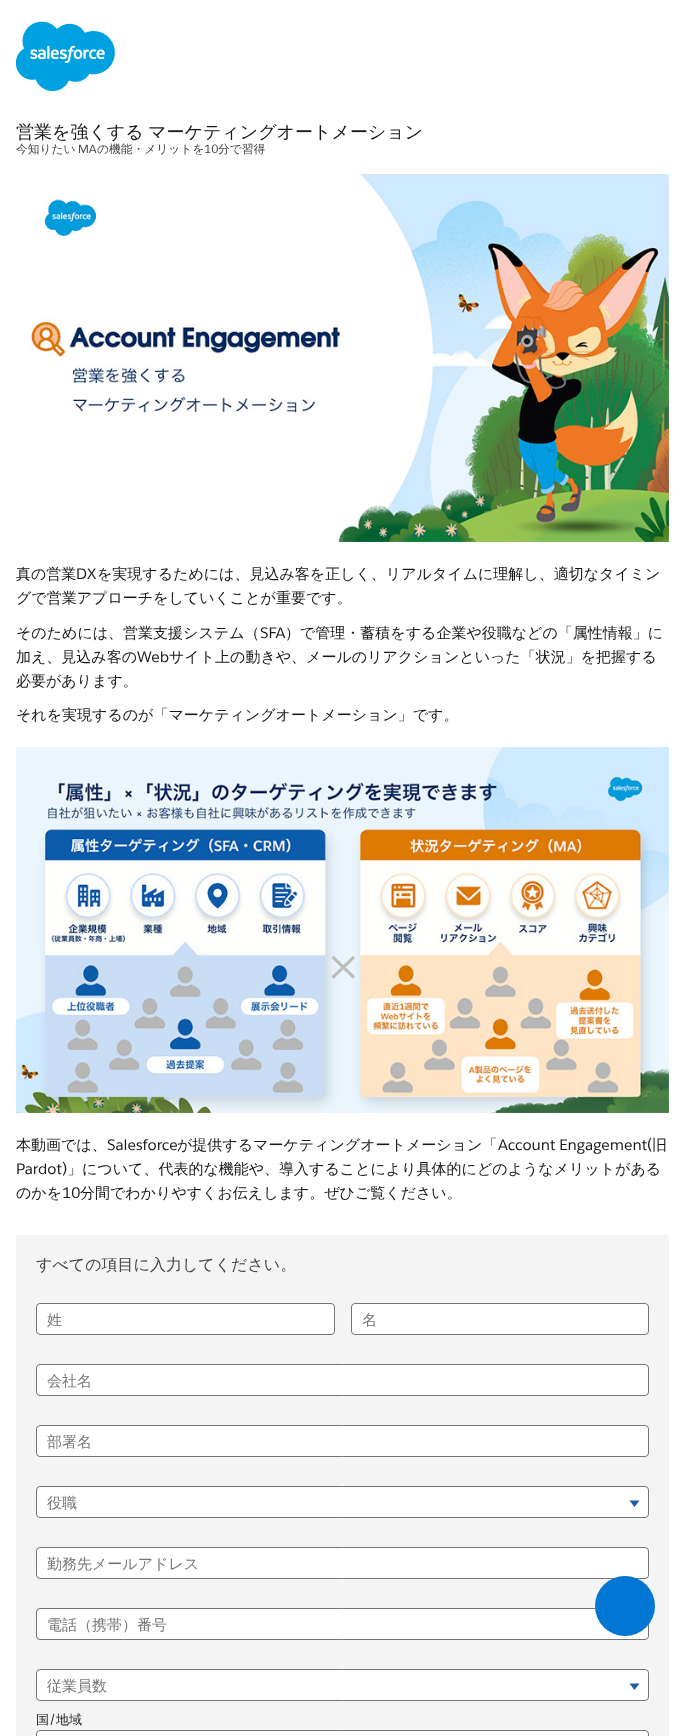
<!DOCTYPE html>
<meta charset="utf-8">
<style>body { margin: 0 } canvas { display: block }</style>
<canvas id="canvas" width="685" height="1736"></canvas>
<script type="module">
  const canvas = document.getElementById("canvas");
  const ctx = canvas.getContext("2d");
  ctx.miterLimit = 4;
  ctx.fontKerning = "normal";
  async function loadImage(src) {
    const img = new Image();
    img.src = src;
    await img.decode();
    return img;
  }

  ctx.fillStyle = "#ffffff";
  ctx.fillRect(0, 0, 685, 1736);
  ctx.drawImage(await loadImage("img1.png"), 16, 21, 99, 70);
  ctx.wordSpacing = "-1px";
  ctx.font = "500 18px WenQuanYi Zen Hei";
  ctx.fillStyle = "#181818";
  ctx.fillText("営業を強くする マーケティングオートメーション", 16, 138);
  ctx.wordSpacing = "0px";
  ctx.font = "500 11.75px WenQuanYi Zen Hei";
  ctx.fillStyle = "#444444";
  ctx.fillText("今知りたい", 16, 153);
  ctx.font = "11.75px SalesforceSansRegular";
  ctx.fillText("MA", 78, 153);
  ctx.font = "500 11.75px WenQuanYi Zen Hei";
  ctx.fillText("の機能・メリットを", 97, 153);
  ctx.font = "11.75px SalesforceSansRegular";
  ctx.fillText("10", 204, 153);
  ctx.font = "500 11.75px WenQuanYi Zen Hei";
  ctx.fillText("分で習得", 218, 153);
  ctx.drawImage(await loadImage("img2.png"), 30, 174, 639, 368);
  ctx.font = "500 15px WenQuanYi Zen Hei";
  ctx.fillStyle = "#181818";
  ctx.fillText("真の営業", 16, 579);
  ctx.font = "15px SalesforceSansRegular";
  ctx.fillText("DX", 76, 579);
  ctx.font = "500 15px WenQuanYi Zen Hei";
  ctx.fillText("を実現するためには、見込み客を正しく、リアルタイムに理解し、適切なタイミン", 97, 579);
  ctx.fillText("グで営業アプローチをしていくことが重要です。", 16, 603);
  ctx.fillText("そのためには、営業支援システム（", 16, 638);
  ctx.font = "15px SalesforceSansRegular";
  ctx.fillText("SFA", 260, 638);
  ctx.font = "500 15px WenQuanYi Zen Hei";
  ctx.fillText("）で管理・蓄積をする企業や役職などの「属性情報」に", 285, 638);
  ctx.fillText("加え、見込み客の", 16, 662);
  ctx.font = "15px SalesforceSansRegular";
  ctx.fillText("Web", 137, 662);
  ctx.font = "500 15px WenQuanYi Zen Hei";
  ctx.fillText("サイト上の動きや、メールのリアクションといった「状況」を把握する", 169, 662);
  ctx.fillText("必要があります。", 16, 686);
  ctx.fillText("それを実現するのが「マーケティングオートメーション」です。", 16, 720);
  ctx.drawImage(await loadImage("img3.png"), 16, 747, 653, 366);
  ctx.fillText("本動画では、", 16, 1150);
  ctx.font = "15px SalesforceSansRegular";
  ctx.fillText("Salesforce", 107, 1150);
  ctx.font = "500 15px WenQuanYi Zen Hei";
  ctx.fillText("が提供するマーケティングオートメーション「", 177, 1150);
  ctx.font = "15px SalesforceSansRegular";
  ctx.fillText("Account Engagement(", 498, 1150);
  ctx.font = "500 15px WenQuanYi Zen Hei";
  ctx.fillText("旧", 652, 1150);
  ctx.font = "15px SalesforceSansRegular";
  ctx.fillText("Pardot)", 16, 1174);
  ctx.font = "500 15px WenQuanYi Zen Hei";
  ctx.fillText("」について、代表的な機能や、導入することにより具体的にどのようなメリットがある", 67, 1174);
  ctx.fillText("のかを", 16, 1198);
  ctx.font = "15px SalesforceSansRegular";
  ctx.fillText("10", 62, 1198);
  ctx.font = "500 15px WenQuanYi Zen Hei";
  ctx.fillText("分間でわかりやすくお伝えします。ぜひご覧ください。", 80, 1198);
  ctx.fillStyle = "#f4f4f4";
  ctx.fillRect(16, 1235, 653, 501);
  ctx.font = "500 16px WenQuanYi Zen Hei";
  ctx.fillStyle = "#444444";
  ctx.fillText("すべての項目に入力してください。", 36, 1270);
  ctx.fillStyle = "#ffffff";
  ctx.beginPath();
  ctx.roundRect(36.5, 1303.5, 298, 31, 3.5);
  ctx.fill();
  ctx.strokeStyle = "#747474";
  ctx.stroke();
  ctx.font = "500 15px WenQuanYi Zen Hei";
  ctx.fillStyle = "#767676";
  ctx.fillText("姓", 47, 1325);
  ctx.fillStyle = "#ffffff";
  ctx.beginPath();
  ctx.roundRect(351.5, 1303.5, 297, 31, 3.5);
  ctx.fill();
  ctx.stroke();
  ctx.fillStyle = "#767676";
  ctx.fillText("名", 362, 1325);
  ctx.fillStyle = "#ffffff";
  ctx.beginPath();
  ctx.roundRect(36.5, 1364.5, 612, 31, 3.5);
  ctx.fill();
  ctx.stroke();
  ctx.fillStyle = "#767676";
  ctx.fillText("会社名", 47, 1386);
  ctx.fillStyle = "#ffffff";
  ctx.beginPath();
  ctx.roundRect(36.5, 1425.5, 612, 31, 3.5);
  ctx.fill();
  ctx.stroke();
  ctx.fillStyle = "#767676";
  ctx.fillText("部署名", 47, 1447);
  ctx.fillStyle = "#ffffff";
  ctx.beginPath();
  ctx.roundRect(36.5, 1486.5, 612, 31, 3.5);
  ctx.fill();
  ctx.stroke();
  ctx.fillStyle = "#767676";
  ctx.fillText("役職", 47, 1508);
  ctx.fillStyle = "#215ca0";
  ctx.beginPath();
  ctx.moveTo(629.5, 1500.5);
  ctx.lineTo(639.5, 1500.5);
  ctx.lineTo(634.5, 1507);
  ctx.closePath();
  ctx.fill();
  ctx.fillStyle = "#ffffff";
  ctx.beginPath();
  ctx.roundRect(36.5, 1547.5, 612, 31, 3.5);
  ctx.fill();
  ctx.stroke();
  ctx.fillStyle = "#767676";
  ctx.fillText("勤務先メールアドレス", 47, 1569);
  ctx.fillStyle = "#ffffff";
  ctx.beginPath();
  ctx.roundRect(36.5, 1608.5, 612, 31, 3.5);
  ctx.fill();
  ctx.stroke();
  ctx.fillStyle = "#767676";
  ctx.fillText("電話（携帯）番号", 47, 1630);
  ctx.fillStyle = "#ffffff";
  ctx.beginPath();
  ctx.roundRect(36.5, 1669.5, 612, 31, 3.5);
  ctx.fill();
  ctx.stroke();
  ctx.fillStyle = "#767676";
  ctx.fillText("従業員数", 47, 1691);
  ctx.fillStyle = "#215ca0";
  ctx.beginPath();
  ctx.moveTo(629.5, 1683.5);
  ctx.lineTo(639.5, 1683.5);
  ctx.lineTo(634.5, 1690);
  ctx.closePath();
  ctx.fill();
  ctx.font = "500 13px WenQuanYi Zen Hei";
  ctx.fillStyle = "#181818";
  ctx.fillText("国", 36, 1724);
  ctx.font = "13px SalesforceSansRegular";
  ctx.fillText("/", 49, 1724);
  ctx.font = "500 13px WenQuanYi Zen Hei";
  ctx.fillText("地域", 56, 1724);
  ctx.fillStyle = "#ffffff";
  ctx.beginPath();
  ctx.roundRect(36.5, 1730.5, 612, 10, 3.5);
  ctx.fill();
  ctx.stroke();
  ctx.fillStyle = "#0176d3";
  ctx.beginPath();
  ctx.arc(625, 1606, 30, 0, Math.PI * 2);
  ctx.fill();
</script>
